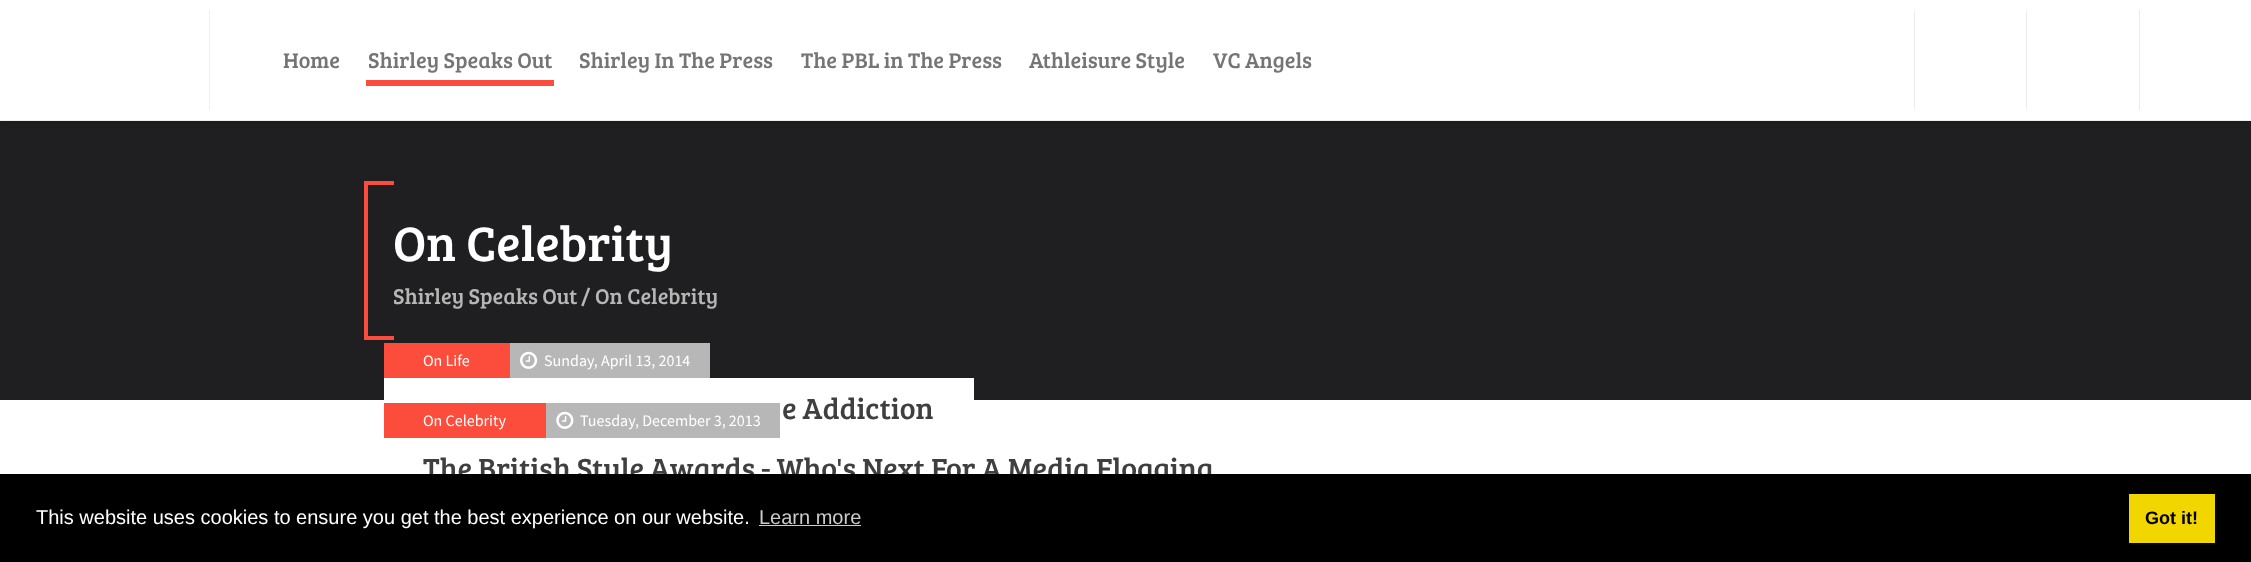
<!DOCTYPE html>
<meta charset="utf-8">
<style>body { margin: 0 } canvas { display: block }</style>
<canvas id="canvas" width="2251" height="562"></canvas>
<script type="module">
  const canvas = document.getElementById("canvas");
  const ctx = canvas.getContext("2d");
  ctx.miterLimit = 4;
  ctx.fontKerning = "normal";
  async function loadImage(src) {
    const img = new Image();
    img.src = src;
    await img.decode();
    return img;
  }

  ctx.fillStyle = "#ffffff";
  ctx.fillRect(0, 0, 2251, 562);
  ctx.fillStyle = "#1f1f21";
  ctx.fillRect(0, 121, 2251, 279);
  ctx.fillStyle = "rgba(0, 0, 0, 0.2)";
  ctx.filter = "blur(3px)";
  ctx.beginPath();
  ctx.rect(0, 0, 2251, 121);
  ctx.fill();
  ctx.filter = "none";
  ctx.fillStyle = "#ffffff";
  ctx.fillRect(0, 0, 2251, 120);
  ctx.fillStyle = "#eeeeee";
  ctx.fillRect(0, 120, 2251, 1);
  ctx.fillRect(209, 10, 1, 100);
  ctx.font = "22px Bree Serif";
  ctx.fillStyle = "#757575";
  ctx.fillText("Home", 283, 68);
  ctx.fillText("Shirley Speaks Out", 368, 68);
  ctx.fillStyle = "#fc4c3b";
  ctx.fillRect(366, 80, 188, 6);
  ctx.fillStyle = "#757575";
  ctx.fillText("Shirley In The Press", 579, 68);
  ctx.fillText("The PBL in The Press", 801, 68);
  ctx.fillText("Athleisure Style", 1029, 68);
  ctx.fillText("VC Angels", 1213, 68);
  ctx.fillStyle = "#ededed";
  ctx.fillRect(1914, 10, 1, 100);
  ctx.fillRect(2026, 10, 1, 100);
  ctx.fillRect(2139, 10, 1, 100);
  ctx.fillStyle = "#fc4c3b";
  ctx.fillRect(364, 181, 30, 4);
  ctx.save();
  ctx.beginPath();
  ctx.rect(364, 181, 30, 159);
  ctx.clip();
  ctx.beginPath();
  ctx.moveTo(240, 58);
  ctx.lineTo(518, 58);
  ctx.lineTo(518, 464);
  ctx.lineTo(240, 464);
  ctx.closePath();
  ctx.moveTo(368, 178);
  ctx.lineTo(398, 178);
  ctx.lineTo(398, 336);
  ctx.lineTo(368, 336);
  ctx.closePath();
  ctx.fill("evenodd");
  ctx.restore();
  ctx.font = "50px Bree Serif";
  ctx.fillStyle = "#ffffff";
  ctx.fillText("On Celebrity", 393, 261);
  ctx.font = "22px Bree Serif";
  ctx.fillStyle = "#b6b6b6";
  ctx.fillText("Shirley Speaks Out", 393, 304);
  ctx.fillText("/", 581, 304);
  ctx.fillText("On Celebrity", 595, 304);
  ctx.fillStyle = "#fc4c3b";
  ctx.fillRect(384, 343, 126, 35);
  ctx.font = "16px Source Sans Pro";
  ctx.fillStyle = "#ffffff";
  ctx.fillText("On Life", 423, 366);
  ctx.fillStyle = "#b7b7b7";
  ctx.fillRect(510, 343, 200, 35);
  ctx.drawImage(await loadImage("img1.png"), 520, 351, 18, 18);
  ctx.fillStyle = "#ffffff";
  ctx.fillText("Sunday, April 13, 2014", 544, 366);
  ctx.fillRect(384, 378, 590, 22);
  ctx.font = "30px Bree Serif";
  ctx.fillStyle = "#3f3f3f";
  ctx.fillText("e Addiction", 782, 419);
  ctx.fillStyle = "#fc4c3b";
  ctx.fillRect(384, 403, 162, 35);
  ctx.font = "16px Source Sans Pro";
  ctx.fillStyle = "#ffffff";
  ctx.fillText("On Celebrity", 423, 426);
  ctx.fillStyle = "#b7b7b7";
  ctx.fillRect(546, 403, 234, 35);
  ctx.drawImage(await loadImage("img2.png"), 556, 411, 18, 18);
  ctx.fillStyle = "#ffffff";
  ctx.fillText("Tuesday, December 3, 2013", 580, 426);
  ctx.font = "30px Bree Serif";
  ctx.fillStyle = "#3f3f3f";
  ctx.fillText("The British Style Awards - Who's Next For A Media Flogging", 423, 479);
  ctx.fillStyle = "#000000";
  ctx.fillRect(0, 474, 2251, 88);
  ctx.font = "20px Liberation Sans";
  ctx.fillStyle = "#ffffff";
  ctx.fillText("This website uses cookies to ensure you get the best experience on our website.", 36, 524);
  ctx.fillStyle = "#cccccc";
  ctx.fillText("Learn more", 759, 524);
  ctx.fillRect(759, 525, 102, 1);
  ctx.fillStyle = "#f1d600";
  ctx.fillRect(2129, 494, 86, 49);
  ctx.font = "bold 18px Liberation Sans";
  ctx.fillStyle = "#000000";
  ctx.fillText("Got it!", 2145, 524);
</script>
